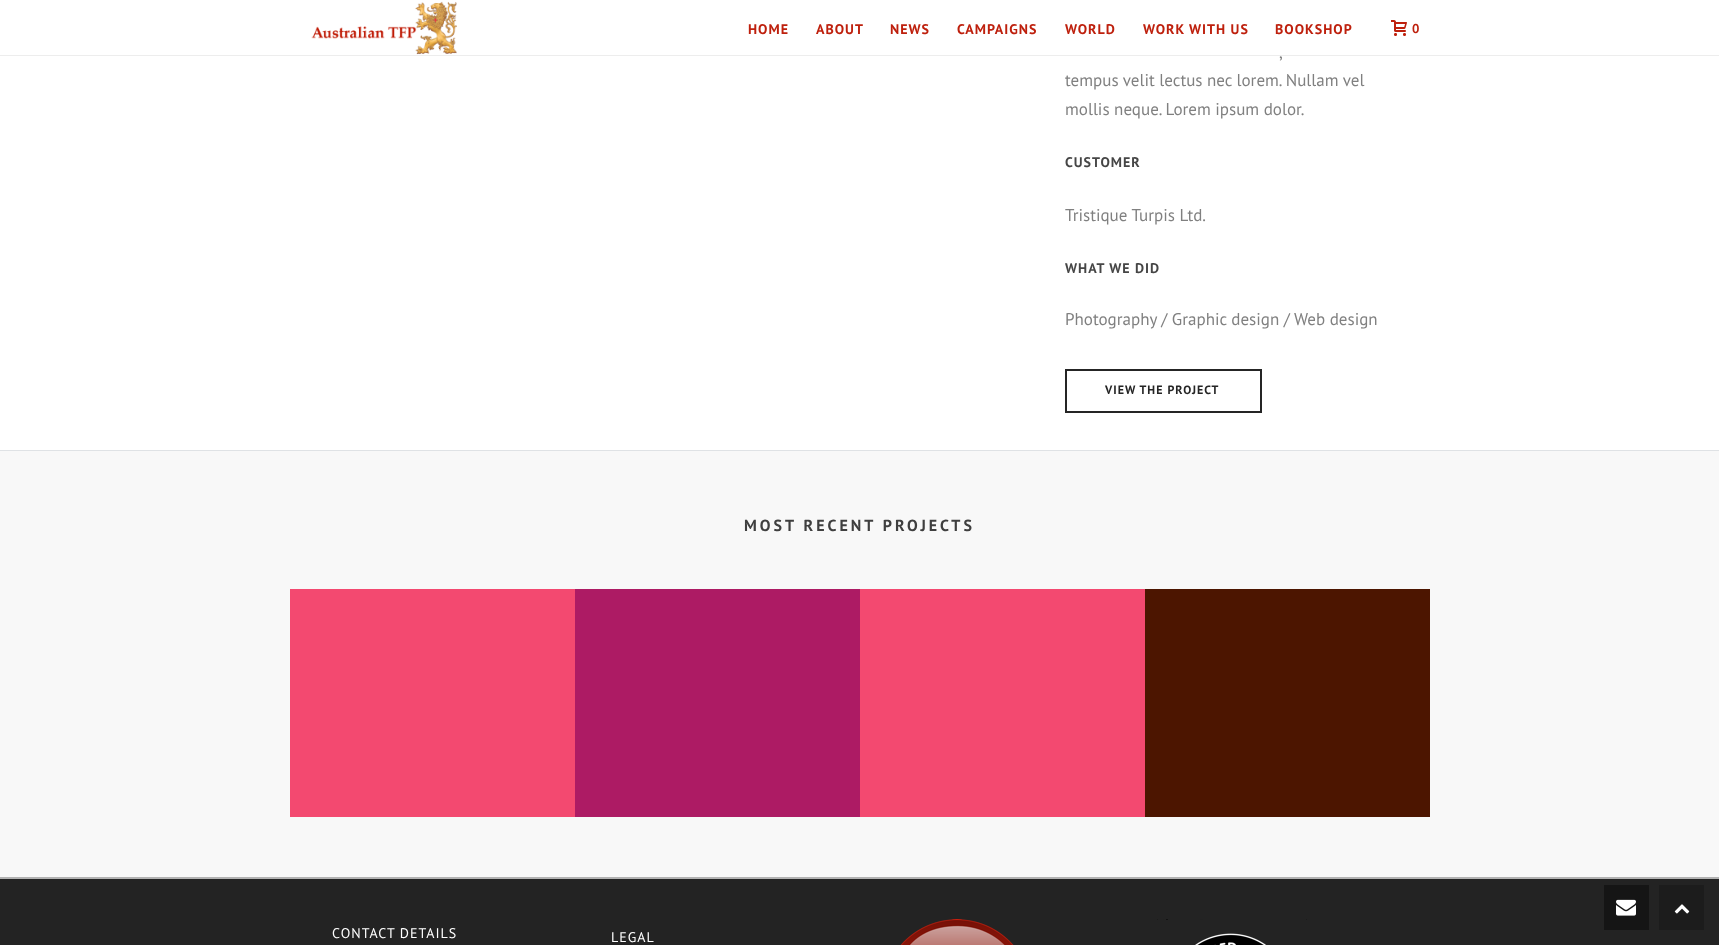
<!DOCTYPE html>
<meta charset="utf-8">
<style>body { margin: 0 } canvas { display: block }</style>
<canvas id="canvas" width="1719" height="945"></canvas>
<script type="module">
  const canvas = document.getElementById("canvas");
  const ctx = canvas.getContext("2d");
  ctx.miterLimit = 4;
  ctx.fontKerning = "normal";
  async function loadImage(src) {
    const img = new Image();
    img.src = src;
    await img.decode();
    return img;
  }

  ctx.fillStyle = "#ffffff";
  ctx.fillRect(0, 0, 1719, 945);
  ctx.fillStyle = "#ededed";
  ctx.fillRect(0, 55, 1719, 1);
  ctx.drawImage(await loadImage("img1.png"), 311, 1, 146, 54);
  ctx.letterSpacing = "1px";
  ctx.font = "bold 14px PT Sans";
  ctx.fillStyle = "#be200d";
  ctx.fillText("HOME", 748, 34);
  ctx.fillText("ABOUT", 816, 34);
  ctx.fillText("NEWS", 890, 34);
  ctx.fillText("CAMPAIGNS", 957, 34);
  ctx.fillText("WORLD", 1065, 34);
  ctx.fillText("WORK WITH US", 1143, 34);
  ctx.fillText("BOOKSHOP", 1275, 34);
  ctx.drawImage(await loadImage("img2.png"), 1391, 20, 16, 16);
  ctx.letterSpacing = "0px";
  ctx.font = "bold 13px PT Sans";
  ctx.fillText("0", 1412, 33);
  ctx.font = "17px PT Sans";
  ctx.fillStyle = "#808080";
  ctx.fillText(",", 1279, 58);
  ctx.fillText("tempus velit lectus nec lorem. Nullam vel", 1065, 86);
  ctx.fillText("mollis neque. Lorem ipsum dolor.", 1065, 115);
  ctx.letterSpacing = "1px";
  ctx.font = "bold 14px PT Sans";
  ctx.fillStyle = "#464646";
  ctx.fillText("CUSTOMER", 1065, 167);
  ctx.letterSpacing = "0px";
  ctx.font = "17px PT Sans";
  ctx.fillStyle = "#808080";
  ctx.fillText("Tristique Turpis Ltd.", 1065, 221);
  ctx.letterSpacing = "1px";
  ctx.font = "bold 14px PT Sans";
  ctx.fillStyle = "#464646";
  ctx.fillText("WHAT WE DID", 1065, 273);
  ctx.letterSpacing = "0px";
  ctx.font = "17px PT Sans";
  ctx.fillStyle = "#808080";
  ctx.fillText("Photography / Graphic design / Web design", 1065, 325);
  ctx.strokeStyle = "#252525";
  ctx.lineWidth = 2;
  ctx.strokeRect(1066, 370, 195, 42);
  ctx.letterSpacing = "1px";
  ctx.font = "bold 12px PT Sans";
  ctx.fillStyle = "#252525";
  ctx.fillText("VIEW THE PROJECT", 1105, 394);
  ctx.fillStyle = "#f8f8f8";
  ctx.fillRect(0, 451, 1719, 426);
  ctx.fillStyle = "#dfe2e5";
  ctx.fillRect(0, 450, 1719, 1);
  ctx.letterSpacing = "3px";
  ctx.font = "bold 16px PT Sans";
  ctx.fillStyle = "#3f3f3f";
  ctx.fillText("MOST RECENT PROJECTS", 744, 531);
  ctx.fillStyle = "#f34970";
  ctx.fillRect(290, 589, 285, 228);
  ctx.fillStyle = "#ad1b64";
  ctx.fillRect(575, 589, 285, 228);
  ctx.fillStyle = "#f34970";
  ctx.fillRect(860, 589, 285, 228);
  ctx.fillStyle = "#4c1500";
  ctx.fillRect(1145, 589, 285, 228);
  ctx.fillStyle = "#232323";
  ctx.fillRect(0, 879, 1719, 66);
  ctx.fillStyle = "#b2b2b2";
  ctx.fillRect(0, 877, 1719, 2);
  ctx.letterSpacing = "1px";
  ctx.font = "14px PT Sans";
  ctx.fillStyle = "#ffffff";
  ctx.fillText("CONTACT DETAILS", 332, 938);
  ctx.fillText("LEGAL", 611, 942);
  ctx.drawImage(await loadImage("img3.png"), 900, 919, 114, 26);
  ctx.drawImage(await loadImage("img4.png"), 1157, 919, 150, 26);
  ctx.fillStyle = "#151515";
  ctx.fillRect(1604, 885, 45, 45);
  ctx.drawImage(await loadImage("img5.png"), 1616, 899, 20, 17);
  ctx.fillStyle = "#1c1c1c";
  ctx.fillRect(1659, 885, 45, 45);
  ctx.drawImage(await loadImage("img6.png"), 1674, 904, 16, 10);
</script>
